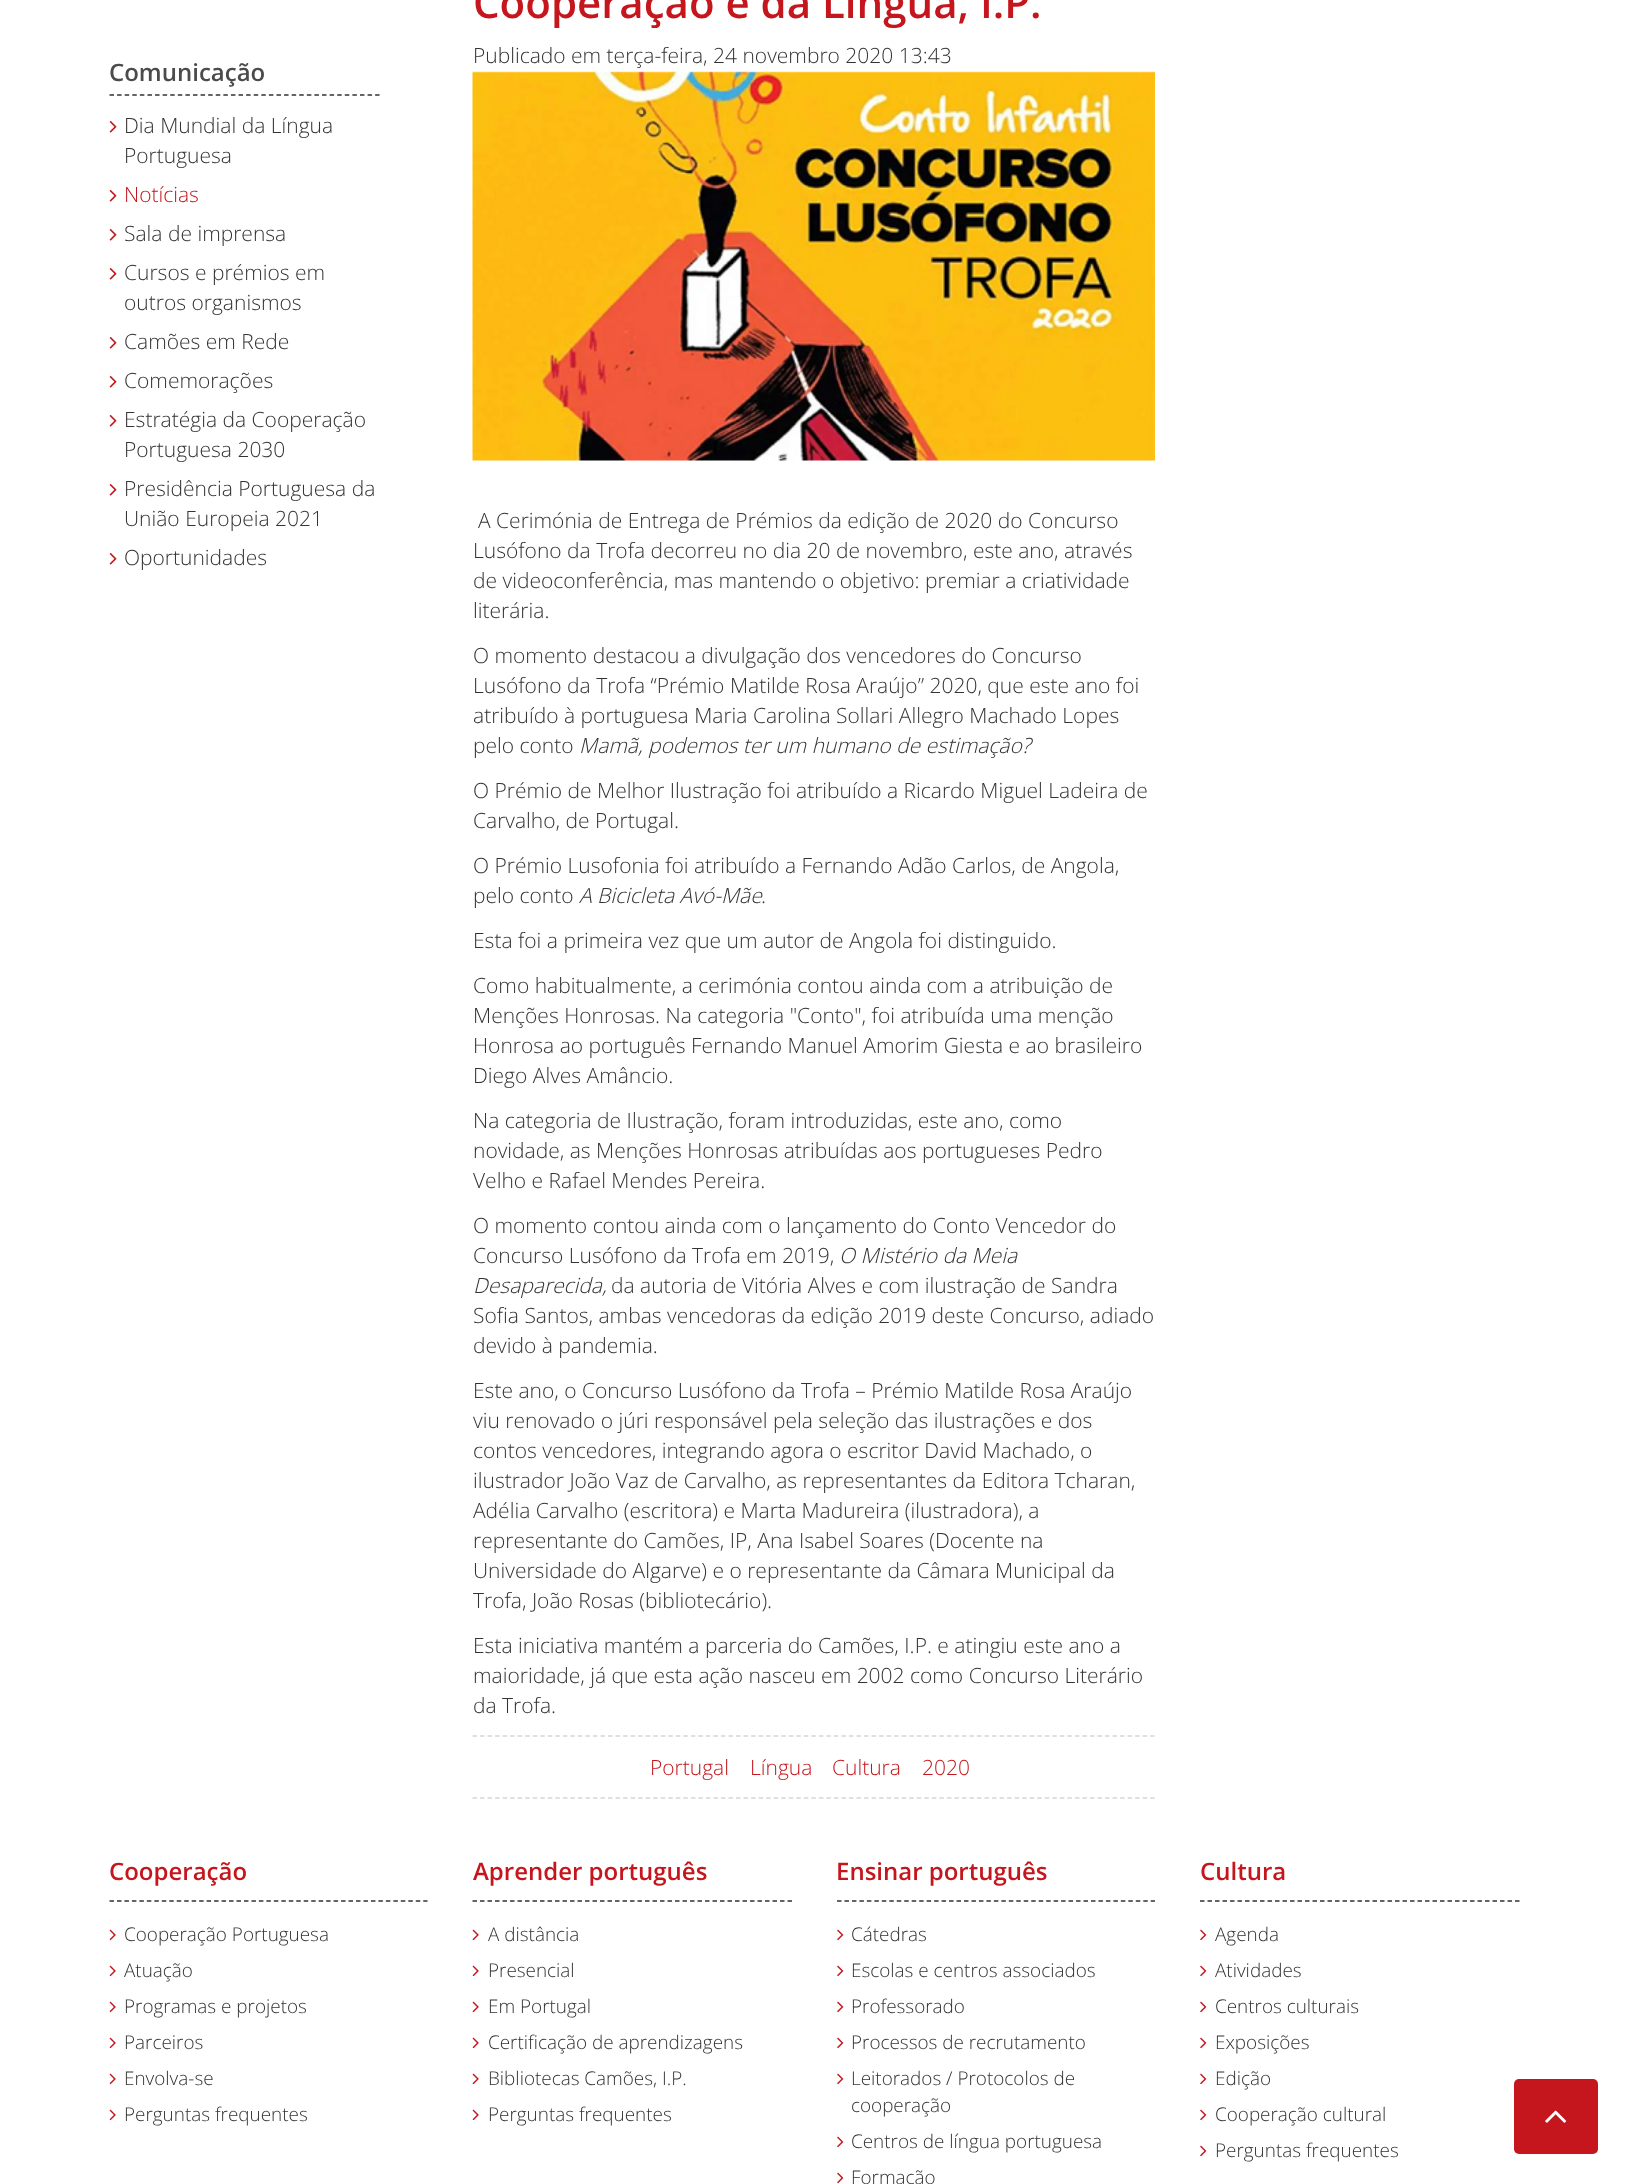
<!DOCTYPE html>
<meta charset="utf-8">
<style>body { margin: 0 } canvas { display: block }</style>
<canvas id="canvas" width="1627" height="2184"></canvas>
<script type="module">
  const canvas = document.getElementById("canvas");
  const ctx = canvas.getContext("2d");
  ctx.miterLimit = 4;
  ctx.fontKerning = "normal";
  async function loadImage(src) {
    const img = new Image();
    img.src = src;
    await img.decode();
    return img;
  }

  ctx.fillStyle = "#ffffff";
  ctx.fillRect(0, 0, 1627, 2184);
  ctx.beginPath();
  ctx.moveTo(109.5, 95);
  ctx.lineTo(379.5, 95);
  ctx.strokeStyle = "#333333";
  ctx.lineWidth = 1.5;
  ctx.setLineDash([4.5, 3.09]);
  ctx.stroke();
  ctx.font = "600 24px Open Sans";
  ctx.fillStyle = "#4b4b4b";
  ctx.fillText("Comunicação", 109, 81);
  ctx.drawImage(await loadImage("img1.png"), 109, 121, 8, 12);
  ctx.font = "300 21px Open Sans";
  ctx.fillStyle = "#333333";
  ctx.fillText("Dia Mundial da Língua", 124, 133);
  ctx.fillText("Portuguesa", 124, 163);
  ctx.drawImage(await loadImage("img1.png"), 109, 190, 8, 12);
  ctx.fillStyle = "#c4161c";
  ctx.fillText("Notícias", 124, 202);
  ctx.drawImage(await loadImage("img1.png"), 109, 229, 8, 12);
  ctx.fillStyle = "#333333";
  ctx.fillText("Sala de imprensa", 124, 241);
  ctx.drawImage(await loadImage("img1.png"), 109, 268, 8, 12);
  ctx.fillText("Cursos e prémios em", 124, 280);
  ctx.fillText("outros organismos", 124, 310);
  ctx.drawImage(await loadImage("img1.png"), 109, 337, 8, 12);
  ctx.fillText("Camões em Rede", 124, 349);
  ctx.drawImage(await loadImage("img1.png"), 109, 376, 8, 12);
  ctx.fillText("Comemorações", 124, 388);
  ctx.drawImage(await loadImage("img1.png"), 109, 415, 8, 12);
  ctx.fillText("Estratégia da Cooperação", 124, 427);
  ctx.fillText("Portuguesa 2030", 124, 457);
  ctx.drawImage(await loadImage("img1.png"), 109, 484, 8, 12);
  ctx.fillText("Presidência Portuguesa da", 124, 496);
  ctx.fillText("União Europeia 2021", 124, 526);
  ctx.drawImage(await loadImage("img1.png"), 109, 553, 8, 12);
  ctx.fillText("Oportunidades", 124, 565);
  ctx.font = "600 42px Open Sans";
  ctx.fillStyle = "#c4161c";
  ctx.fillText("Cooperação e da Língua, I.P.", 473, 18);
  ctx.font = "300 21px Open Sans";
  ctx.fillStyle = "#333333";
  ctx.fillText("Publicado em terça-feira, 24 novembro 2020 13:43", 473, 63);
  ctx.drawImage(await loadImage("img2.png"), 472, 71, 683, 390);
  ctx.fillText("A Cerimónia de Entrega de Prémios da edição de 2020 do Concurso", 478, 528);
  ctx.fillText("Lusófono da Trofa decorreu no dia 20 de novembro, este ano, através", 473, 558);
  ctx.fillText("de videoconferência, mas mantendo o objetivo: premiar a criatividade", 473, 588);
  ctx.fillText("literária.", 473, 618);
  ctx.fillText("O momento destacou a divulgação dos vencedores do Concurso", 473, 663);
  ctx.fillText("Lusófono da Trofa “Prémio Matilde Rosa Araújo” 2020, que este ano foi", 473, 693);
  ctx.fillText("atribuído à portuguesa Maria Carolina Sollari Allegro Machado Lopes", 473, 723);
  ctx.fillText("pelo conto", 473, 753);
  ctx.font = "italic 300 21px Open Sans";
  ctx.fillText("Mamã, podemos ter um humano de estimação?", 579, 753);
  ctx.font = "300 21px Open Sans";
  ctx.fillText("O Prémio de Melhor Ilustração foi atribuído a Ricardo Miguel Ladeira de", 473, 798);
  ctx.fillText("Carvalho, de Portugal.", 473, 828);
  ctx.fillText("O Prémio Lusofonia foi atribuído a Fernando Adão Carlos, de Angola,", 473, 873);
  ctx.fillText("pelo conto", 473, 903);
  ctx.font = "italic 300 21px Open Sans";
  ctx.fillText("A Bicicleta Avó-Mãe", 579, 903);
  ctx.font = "300 21px Open Sans";
  ctx.fillText(".", 761, 903);
  ctx.fillText("Esta foi a primeira vez que um autor de Angola foi distinguido.", 473, 948);
  ctx.fillText("Como habitualmente, a cerimónia contou ainda com a atribuição de", 473, 993);
  ctx.fillText("Menções Honrosas. Na categoria \"Conto\", foi atribuída uma menção", 473, 1023);
  ctx.fillText("Honrosa ao português Fernando Manuel Amorim Giesta e ao brasileiro", 473, 1053);
  ctx.fillText("Diego Alves Amâncio.", 473, 1083);
  ctx.fillText("Na categoria de Ilustração, foram introduzidas, este ano, como", 473, 1128);
  ctx.fillText("novidade, as Menções Honrosas atribuídas aos portugueses Pedro", 473, 1158);
  ctx.fillText("Velho e Rafael Mendes Pereira.", 473, 1188);
  ctx.fillText("O momento contou ainda com o lançamento do Conto Vencedor do", 473, 1233);
  ctx.fillText("Concurso Lusófono da Trofa em 2019,", 473, 1263);
  ctx.font = "italic 300 21px Open Sans";
  ctx.fillText("O Mistério da Meia", 839, 1263);
  ctx.fillText("Desaparecida,", 473, 1293);
  ctx.font = "300 21px Open Sans";
  ctx.fillText("da autoria de Vitória Alves e com ilustração de Sandra", 611, 1293);
  ctx.fillText("Sofia Santos, ambas vencedoras da edição 2019 deste Concurso, adiado", 473, 1323);
  ctx.fillText("devido à pandemia.", 473, 1353);
  ctx.fillText("Este ano, o Concurso Lusófono da Trofa – Prémio Matilde Rosa Araújo", 473, 1398);
  ctx.fillText("viu renovado o júri responsável pela seleção das ilustrações e dos", 473, 1428);
  ctx.fillText("contos vencedores, integrando agora o escritor David Machado, o", 473, 1458);
  ctx.fillText("ilustrador João Vaz de Carvalho, as representantes da Editora Tcharan,", 473, 1488);
  ctx.fillText("Adélia Carvalho (escritora) e Marta Madureira (ilustradora), a", 473, 1518);
  ctx.fillText("representante do Camões, IP, Ana Isabel Soares (Docente na", 473, 1548);
  ctx.fillText("Universidade do Algarve) e o representante da Câmara Municipal da", 473, 1578);
  ctx.fillText("Trofa, João Rosas (bibliotecário).", 473, 1608);
  ctx.fillText("Esta iniciativa mantém a parceria do Camões, I.P. e atingiu este ano a", 473, 1653);
  ctx.fillText("maioridade, já que esta ação nasceu em 2002 como Concurso Literário", 473, 1683);
  ctx.fillText("da Trofa.", 473, 1713);
  ctx.beginPath();
  ctx.moveTo(472.5, 1736);
  ctx.lineTo(1155, 1736);
  ctx.strokeStyle = "#d6d6d6";
  ctx.setLineDash([4.5, 3.03]);
  ctx.stroke();
  ctx.beginPath();
  ctx.moveTo(472.5, 1798);
  ctx.lineTo(1155, 1798);
  ctx.stroke();
  ctx.fillStyle = "#c4161c";
  ctx.fillText("Portugal", 650, 1775);
  ctx.fillText("Língua", 750, 1775);
  ctx.fillText("Cultura", 832, 1775);
  ctx.fillText("2020", 922, 1775);
  ctx.beginPath();
  ctx.moveTo(109.5, 1901);
  ctx.lineTo(427.5, 1901);
  ctx.strokeStyle = "#333333";
  ctx.setLineDash([4.5, 2.97]);
  ctx.stroke();
  ctx.font = "600 24px Open Sans";
  ctx.fillText("Cooperação", 109, 1880);
  ctx.drawImage(await loadImage("img3.png"), 109, 1929, 7, 12);
  ctx.font = "300 18.9px Open Sans";
  ctx.fillStyle = "#333333";
  ctx.fillText("Cooperação Portuguesa", 124, 1941);
  ctx.drawImage(await loadImage("img3.png"), 109, 1965, 7, 12);
  ctx.fillText("Atuação", 124, 1977);
  ctx.drawImage(await loadImage("img3.png"), 109, 2001, 7, 12);
  ctx.fillText("Programas e projetos", 124, 2013);
  ctx.drawImage(await loadImage("img3.png"), 109, 2037, 7, 12);
  ctx.fillText("Parceiros", 124, 2049);
  ctx.drawImage(await loadImage("img3.png"), 109, 2073, 7, 12);
  ctx.fillText("Envolva-se", 124, 2085);
  ctx.drawImage(await loadImage("img3.png"), 109, 2109, 7, 12);
  ctx.fillText("Perguntas frequentes", 124, 2121);
  ctx.beginPath();
  ctx.moveTo(472.5, 1901);
  ctx.lineTo(792, 1901);
  ctx.setLineDash([4.5, 3]);
  ctx.stroke();
  ctx.font = "600 24px Open Sans";
  ctx.fillStyle = "#c4161c";
  ctx.fillText("Aprender português", 473, 1880);
  ctx.drawImage(await loadImage("img3.png"), 472, 1929, 7, 12);
  ctx.font = "300 18.9px Open Sans";
  ctx.fillStyle = "#333333";
  ctx.fillText("A distância", 488, 1941);
  ctx.drawImage(await loadImage("img3.png"), 472, 1965, 7, 12);
  ctx.fillText("Presencial", 488, 1977);
  ctx.drawImage(await loadImage("img3.png"), 472, 2001, 7, 12);
  ctx.fillText("Em Portugal", 488, 2013);
  ctx.drawImage(await loadImage("img3.png"), 472, 2037, 7, 12);
  ctx.fillText("Certificação de aprendizagens", 488, 2049);
  ctx.drawImage(await loadImage("img3.png"), 472, 2073, 7, 12);
  ctx.fillText("Bibliotecas Camões, I.P.", 488, 2085);
  ctx.drawImage(await loadImage("img3.png"), 472, 2109, 7, 12);
  ctx.fillText("Perguntas frequentes", 488, 2121);
  ctx.beginPath();
  ctx.moveTo(837, 1901);
  ctx.lineTo(1155, 1901);
  ctx.setLineDash([4.5, 2.97]);
  ctx.stroke();
  ctx.font = "600 24px Open Sans";
  ctx.fillStyle = "#c4161c";
  ctx.fillText("Ensinar português", 836, 1880);
  ctx.drawImage(await loadImage("img4.png"), 837, 1929, 7, 12);
  ctx.font = "300 18.9px Open Sans";
  ctx.fillStyle = "#333333";
  ctx.fillText("Cátedras", 851, 1941);
  ctx.drawImage(await loadImage("img4.png"), 837, 1965, 7, 12);
  ctx.fillText("Escolas e centros associados", 851, 1977);
  ctx.drawImage(await loadImage("img4.png"), 837, 2001, 7, 12);
  ctx.fillText("Professorado", 851, 2013);
  ctx.drawImage(await loadImage("img4.png"), 837, 2037, 7, 12);
  ctx.fillText("Processos de recrutamento", 851, 2049);
  ctx.drawImage(await loadImage("img4.png"), 837, 2073, 7, 12);
  ctx.fillText("Leitorados / Protocolos de", 851, 2085);
  ctx.fillText("cooperação", 851, 2112);
  ctx.drawImage(await loadImage("img4.png"), 837, 2136, 7, 12);
  ctx.fillText("Centros de língua portuguesa", 851, 2148);
  ctx.drawImage(await loadImage("img4.png"), 837, 2172, 7, 12);
  ctx.fillText("Formação", 851, 2184);
  ctx.beginPath();
  ctx.moveTo(1200, 1901);
  ctx.lineTo(1519.5, 1901);
  ctx.setLineDash([4.5, 3]);
  ctx.stroke();
  ctx.font = "600 24px Open Sans";
  ctx.fillStyle = "#c4161c";
  ctx.fillText("Cultura", 1200, 1880);
  ctx.drawImage(await loadImage("img4.png"), 1200, 1929, 7, 12);
  ctx.font = "300 18.9px Open Sans";
  ctx.fillStyle = "#333333";
  ctx.fillText("Agenda", 1215, 1941);
  ctx.drawImage(await loadImage("img4.png"), 1200, 1965, 7, 12);
  ctx.fillText("Atividades", 1215, 1977);
  ctx.drawImage(await loadImage("img4.png"), 1200, 2001, 7, 12);
  ctx.fillText("Centros culturais", 1215, 2013);
  ctx.drawImage(await loadImage("img4.png"), 1200, 2037, 7, 12);
  ctx.fillText("Exposições", 1215, 2049);
  ctx.drawImage(await loadImage("img4.png"), 1200, 2073, 7, 12);
  ctx.fillText("Edição", 1215, 2085);
  ctx.drawImage(await loadImage("img4.png"), 1200, 2109, 7, 12);
  ctx.fillText("Cooperação cultural", 1215, 2121);
  ctx.drawImage(await loadImage("img4.png"), 1200, 2145, 7, 12);
  ctx.fillText("Perguntas frequentes", 1215, 2157);
  ctx.fillStyle = "#c4161c";
  ctx.beginPath();
  ctx.roundRect(1514, 2079, 84, 75, 5);
  ctx.fill();
  ctx.drawImage(await loadImage("img5.png"), 1545, 2110, 22, 13);
</script>
